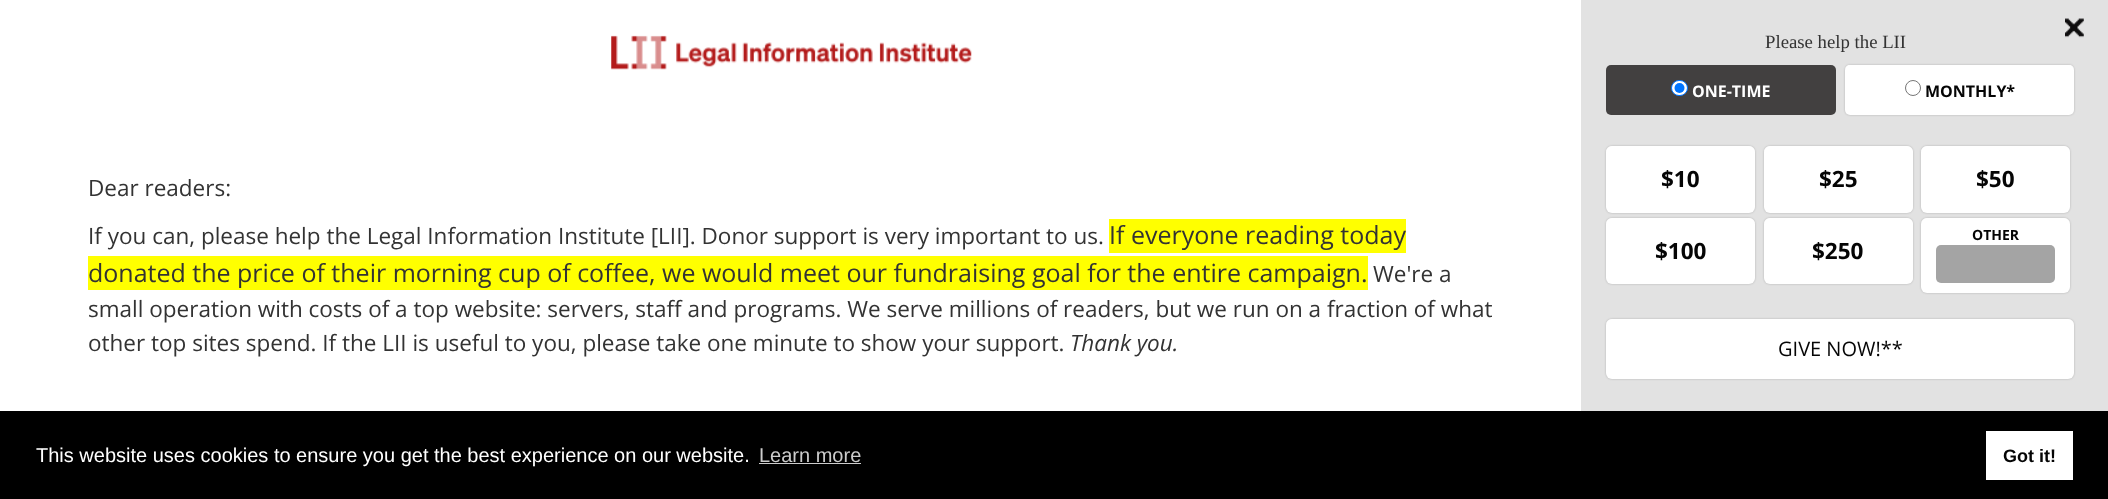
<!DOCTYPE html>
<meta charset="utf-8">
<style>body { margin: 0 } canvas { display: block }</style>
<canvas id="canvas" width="2108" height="499"></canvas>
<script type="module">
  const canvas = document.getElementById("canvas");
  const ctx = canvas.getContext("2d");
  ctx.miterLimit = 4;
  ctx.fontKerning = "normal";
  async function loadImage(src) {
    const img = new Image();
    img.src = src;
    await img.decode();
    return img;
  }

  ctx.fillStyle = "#ffffff";
  ctx.fillRect(0, 0, 2108, 499);
  ctx.drawImage(await loadImage("img1.png"), 611, 35, 361, 35);
  ctx.font = "22.5px Open Sans";
  ctx.fillStyle = "#333333";
  ctx.fillText("Dear readers:", 88, 196);
  ctx.fillText("If you can, please help the Legal Information Institute [LII]. Donor support is very important to us.", 88, 244);
  ctx.fillStyle = "#ffff00";
  ctx.fillRect(1109, 219, 297, 34);
  ctx.font = "25px Open Sans";
  ctx.fillStyle = "#333333";
  ctx.fillText("If everyone reading today", 1109, 244);
  ctx.fillStyle = "#ffff00";
  ctx.fillRect(88, 256, 1280, 34);
  ctx.fillStyle = "#333333";
  ctx.fillText("donated the price of their morning cup of coffee, we would meet our fundraising goal for the entire campaign.", 88, 282);
  ctx.font = "22.5px Open Sans";
  ctx.fillText("We're a", 1373, 282);
  ctx.fillText("small operation with costs of a top website: servers, staff and programs. We serve millions of readers, but we run on a fraction of what", 88, 317);
  ctx.fillText("other top sites spend. If the LII is useful to you, please take one minute to show your support.", 88, 351);
  ctx.font = "italic 22.5px Open Sans";
  ctx.fillText("Thank you.", 1070, 351);
  ctx.fillStyle = "#e2e2e2";
  ctx.fillRect(1581, 0, 527, 411);
  ctx.drawImage(await loadImage("img2.png"), 2065, 18, 19, 20);
  ctx.font = "18.75px Liberation Serif";
  ctx.fillStyle = "#333333";
  ctx.fillText("Please help the LII", 1765, 48);
  ctx.fillStyle = "#424040";
  ctx.beginPath();
  ctx.roundRect(1606, 65, 230, 50, 5);
  ctx.fill();
  ctx.fillStyle = "#ffffff";
  ctx.beginPath();
  ctx.roundRect(1671.5, 80.5, 16, 15, 7.5);
  ctx.fill();
  ctx.strokeStyle = "#0075ff";
  ctx.stroke();
  ctx.fillStyle = "#0075ff";
  ctx.beginPath();
  ctx.arc(1679.5, 88, 5, 0, Math.PI * 2);
  ctx.fill();
  ctx.font = "bold 16px Open Sans";
  ctx.fillStyle = "#ffffff";
  ctx.fillText("ONE-TIME", 1692, 97);
  ctx.fillStyle = "rgba(0, 0, 0, 0.2)";
  ctx.filter = "blur(1px)";
  ctx.beginPath();
  ctx.roundRect(1845, 65, 229, 50, 5);
  ctx.fill();
  ctx.filter = "none";
  ctx.fillStyle = "#ffffff";
  ctx.beginPath();
  ctx.roundRect(1845, 65, 229, 50, 5);
  ctx.fill();
  ctx.fillStyle = "rgba(255, 255, 255, 0.75)";
  ctx.beginPath();
  ctx.moveTo(1850, 66);
  ctx.lineTo(2069, 66);
  ctx.bezierCurveTo(2072, 66, 2074, 68, 2074, 71);
  ctx.lineTo(2074, 70);
  ctx.bezierCurveTo(2074, 67, 2072, 65, 2069, 65);
  ctx.lineTo(1850, 65);
  ctx.bezierCurveTo(1847, 65, 1845, 67, 1845, 70);
  ctx.lineTo(1845, 71);
  ctx.bezierCurveTo(1845, 68, 1847, 66, 1850, 66);
  ctx.closePath();
  ctx.fill();
  ctx.beginPath();
  ctx.arc(1913, 88, 7.5, 0, Math.PI * 2);
  ctx.strokeStyle = "#767676";
  ctx.stroke();
  ctx.fillStyle = "#050505";
  ctx.fillText("MONTHLY*", 1925, 97);
  ctx.fillStyle = "rgba(0, 0, 0, 0.2)";
  ctx.filter = "blur(1px)";
  ctx.beginPath();
  ctx.roundRect(1606, 146, 149, 67, 6);
  ctx.fill();
  ctx.filter = "none";
  ctx.fillStyle = "#ffffff";
  ctx.beginPath();
  ctx.roundRect(1606, 146, 149, 67, 6);
  ctx.fill();
  ctx.fillStyle = "rgba(255, 255, 255, 0.75)";
  ctx.beginPath();
  ctx.moveTo(1613, 148);
  ctx.lineTo(1748, 148);
  ctx.bezierCurveTo(1752, 148, 1755, 151, 1755, 154);
  ctx.lineTo(1755, 152);
  ctx.bezierCurveTo(1755, 149, 1752, 146, 1749, 146);
  ctx.lineTo(1612, 146);
  ctx.bezierCurveTo(1609, 146, 1606, 149, 1606, 152);
  ctx.lineTo(1606, 154);
  ctx.bezierCurveTo(1606, 151, 1609, 148, 1613, 148);
  ctx.closePath();
  ctx.fill();
  ctx.font = "bold 22.5px Open Sans";
  ctx.fillStyle = "#050505";
  ctx.fillText("$10", 1661, 187);
  ctx.fillStyle = "rgba(0, 0, 0, 0.2)";
  ctx.filter = "blur(1px)";
  ctx.beginPath();
  ctx.roundRect(1764, 146, 149, 67, 6);
  ctx.fill();
  ctx.filter = "none";
  ctx.fillStyle = "#ffffff";
  ctx.beginPath();
  ctx.roundRect(1764, 146, 149, 67, 6);
  ctx.fill();
  ctx.fillStyle = "rgba(255, 255, 255, 0.75)";
  ctx.beginPath();
  ctx.moveTo(1770, 148);
  ctx.lineTo(1906, 148);
  ctx.bezierCurveTo(1909, 148, 1912, 151, 1912, 154);
  ctx.lineTo(1912, 207);
  ctx.bezierCurveTo(1912, 209, 1911, 211, 1910, 212);
  ctx.bezierCurveTo(1912, 211, 1913, 209, 1913, 207);
  ctx.lineTo(1913, 152);
  ctx.bezierCurveTo(1913, 149, 1910, 146, 1907, 146);
  ctx.lineTo(1770, 146);
  ctx.bezierCurveTo(1767, 146, 1764, 149, 1764, 152);
  ctx.lineTo(1764, 154);
  ctx.bezierCurveTo(1764, 151, 1767, 148, 1770, 148);
  ctx.closePath();
  ctx.fill();
  ctx.fillStyle = "#050505";
  ctx.fillText("$25", 1819, 187);
  ctx.fillStyle = "rgba(0, 0, 0, 0.2)";
  ctx.filter = "blur(1px)";
  ctx.beginPath();
  ctx.roundRect(1921, 146, 149, 67, 6);
  ctx.fill();
  ctx.filter = "none";
  ctx.fillStyle = "#ffffff";
  ctx.beginPath();
  ctx.roundRect(1921, 146, 149, 67, 6);
  ctx.fill();
  ctx.fillStyle = "rgba(255, 255, 255, 0.75)";
  ctx.beginPath();
  ctx.moveTo(1928, 148);
  ctx.lineTo(2063, 148);
  ctx.bezierCurveTo(2067, 148, 2070, 151, 2070, 154);
  ctx.lineTo(2070, 152);
  ctx.bezierCurveTo(2070, 149, 2067, 146, 2064, 146);
  ctx.lineTo(1927, 146);
  ctx.bezierCurveTo(1924, 146, 1921, 149, 1921, 152);
  ctx.lineTo(1921, 154);
  ctx.bezierCurveTo(1921, 151, 1924, 148, 1928, 148);
  ctx.closePath();
  ctx.fill();
  ctx.fillStyle = "#050505";
  ctx.fillText("$50", 1976, 187);
  ctx.fillStyle = "rgba(0, 0, 0, 0.2)";
  ctx.filter = "blur(1px)";
  ctx.beginPath();
  ctx.roundRect(1921, 218, 149, 75, 6);
  ctx.fill();
  ctx.filter = "none";
  ctx.fillStyle = "#ffffff";
  ctx.beginPath();
  ctx.roundRect(1921, 218, 149, 75, 6);
  ctx.fill();
  ctx.fillStyle = "rgba(255, 255, 255, 0.75)";
  ctx.beginPath();
  ctx.moveTo(1927, 219);
  ctx.lineTo(2064, 219);
  ctx.bezierCurveTo(2067, 219, 2070, 221, 2070, 225);
  ctx.lineTo(2070, 224);
  ctx.bezierCurveTo(2070, 221, 2067, 218, 2064, 218);
  ctx.lineTo(1927, 218);
  ctx.bezierCurveTo(1924, 218, 1921, 221, 1921, 224);
  ctx.lineTo(1921, 225);
  ctx.bezierCurveTo(1921, 221, 1924, 219, 1927, 219);
  ctx.closePath();
  ctx.fill();
  ctx.font = "bold 14px Open Sans";
  ctx.fillStyle = "#050505";
  ctx.fillText("OTHER", 1972, 240);
  ctx.fillStyle = "#a4a4a4";
  ctx.beginPath();
  ctx.roundRect(1936, 245, 119, 38, 5);
  ctx.fill();
  ctx.fillStyle = "rgba(0, 0, 0, 0.2)";
  ctx.filter = "blur(1px)";
  ctx.beginPath();
  ctx.roundRect(1606, 218, 149, 66, 6);
  ctx.fill();
  ctx.filter = "none";
  ctx.fillStyle = "#ffffff";
  ctx.beginPath();
  ctx.roundRect(1606, 218, 149, 66, 6);
  ctx.fill();
  ctx.fillStyle = "rgba(255, 255, 255, 0.75)";
  ctx.beginPath();
  ctx.moveTo(1613, 219);
  ctx.lineTo(1748, 219);
  ctx.bezierCurveTo(1752, 219, 1755, 222, 1755, 226);
  ctx.lineTo(1755, 224);
  ctx.bezierCurveTo(1755, 221, 1752, 218, 1749, 218);
  ctx.lineTo(1612, 218);
  ctx.bezierCurveTo(1609, 218, 1606, 221, 1606, 224);
  ctx.lineTo(1606, 226);
  ctx.bezierCurveTo(1606, 222, 1609, 219, 1613, 219);
  ctx.closePath();
  ctx.fill();
  ctx.font = "bold 22.5px Open Sans";
  ctx.fillStyle = "#050505";
  ctx.fillText("$100", 1655, 259);
  ctx.fillStyle = "rgba(0, 0, 0, 0.2)";
  ctx.filter = "blur(1px)";
  ctx.beginPath();
  ctx.roundRect(1764, 218, 149, 66, 6);
  ctx.fill();
  ctx.filter = "none";
  ctx.fillStyle = "#ffffff";
  ctx.beginPath();
  ctx.roundRect(1764, 218, 149, 66, 6);
  ctx.fill();
  ctx.fillStyle = "rgba(255, 255, 255, 0.75)";
  ctx.beginPath();
  ctx.moveTo(1770, 219);
  ctx.lineTo(1906, 219);
  ctx.bezierCurveTo(1909, 219, 1912, 222, 1912, 226);
  ctx.lineTo(1912, 278);
  ctx.bezierCurveTo(1912, 280, 1911, 282, 1910, 283);
  ctx.bezierCurveTo(1912, 282, 1913, 280, 1913, 278);
  ctx.lineTo(1913, 224);
  ctx.bezierCurveTo(1913, 221, 1910, 218, 1907, 218);
  ctx.lineTo(1770, 218);
  ctx.bezierCurveTo(1767, 218, 1764, 221, 1764, 224);
  ctx.lineTo(1764, 226);
  ctx.bezierCurveTo(1764, 222, 1767, 219, 1770, 219);
  ctx.closePath();
  ctx.fill();
  ctx.fillStyle = "#050505";
  ctx.fillText("$250", 1812, 259);
  ctx.fillStyle = "rgba(0, 0, 0, 0.2)";
  ctx.filter = "blur(1px)";
  ctx.beginPath();
  ctx.roundRect(1606, 319, 468, 60, 6);
  ctx.fill();
  ctx.filter = "none";
  ctx.fillStyle = "#ffffff";
  ctx.beginPath();
  ctx.roundRect(1606, 319, 468, 60, 6);
  ctx.fill();
  ctx.fillStyle = "rgba(255, 255, 255, 0.75)";
  ctx.beginPath();
  ctx.moveTo(1612, 320);
  ctx.lineTo(2068, 320);
  ctx.bezierCurveTo(2071, 320, 2074, 323, 2074, 326);
  ctx.lineTo(2074, 325);
  ctx.bezierCurveTo(2074, 322, 2071, 319, 2068, 319);
  ctx.lineTo(1612, 319);
  ctx.bezierCurveTo(1609, 319, 1606, 322, 1606, 325);
  ctx.lineTo(1606, 326);
  ctx.bezierCurveTo(1606, 323, 1609, 320, 1612, 320);
  ctx.closePath();
  ctx.fill();
  ctx.font = "20px Open Sans";
  ctx.fillStyle = "#050505";
  ctx.fillText("GIVE NOW!**", 1778, 356);
  ctx.fillStyle = "#000000";
  ctx.fillRect(0, 411, 2108, 88);
  ctx.font = "20px Liberation Sans";
  ctx.fillStyle = "#ffffff";
  ctx.fillText("This website uses cookies to ensure you get the best experience on our website.", 36, 462);
  ctx.fillStyle = "#cccccc";
  ctx.fillText("Learn more", 759, 462);
  ctx.fillRect(759, 463, 102, 1);
  ctx.fillStyle = "#ffffff";
  ctx.fillRect(1986, 431, 87, 49);
  ctx.font = "bold 18px Liberation Sans";
  ctx.fillStyle = "#050505";
  ctx.fillText("Got it!", 2003, 462);
</script>
